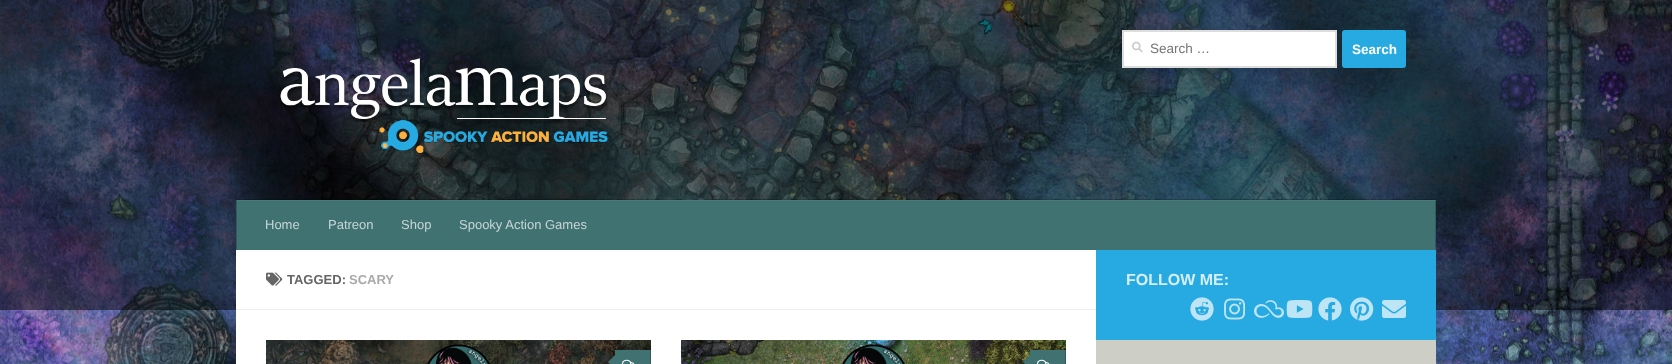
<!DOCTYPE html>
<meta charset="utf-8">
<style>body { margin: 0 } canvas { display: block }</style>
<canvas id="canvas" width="1672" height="364"></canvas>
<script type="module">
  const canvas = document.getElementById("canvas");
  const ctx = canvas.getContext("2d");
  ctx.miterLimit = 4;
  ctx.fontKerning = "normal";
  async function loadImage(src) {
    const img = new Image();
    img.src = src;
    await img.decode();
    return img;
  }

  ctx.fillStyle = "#ffffff";
  ctx.fillRect(0, 0, 1672, 364);
  ctx.drawImage(await loadImage("img1.png"), 0, 0, 1672, 364);
  ctx.fillStyle = "rgba(0, 0, 0, 0.5)";
  ctx.fillRect(0, 0, 1672, 310);
  ctx.fillStyle = "#ffffff";
  ctx.beginPath();
  ctx.rect(1123, 31, 213, 36);
  ctx.fill();
  ctx.strokeStyle = "#dddddd";
  ctx.lineWidth = 2;
  ctx.stroke();
  ctx.drawImage(await loadImage("img2.png"), 1132, 41, 11, 12);
  ctx.font = "13.5px Liberation Sans";
  ctx.fillStyle = "#757575";
  ctx.fillText("Search …", 1150, 53);
  ctx.fillStyle = "#27aae1";
  ctx.beginPath();
  ctx.roundRect(1342, 30, 64, 38, 3);
  ctx.fill();
  ctx.font = "bold 13.5px Liberation Sans";
  ctx.fillStyle = "#ffffff";
  ctx.fillText("Search", 1352, 54);
  ctx.drawImage(await loadImage("img3.png"), 280, 58, 328, 96);
  ctx.fillStyle = "rgba(0, 0, 0, 0.2)";
  ctx.fillRect(236, 199, 1200, 1);
  ctx.fillStyle = "#417272";
  ctx.fillRect(237, 200, 1198, 50);
  ctx.fillStyle = "#345b5b";
  ctx.fillRect(1435, 200, 1, 50);
  ctx.fillRect(236, 200, 1, 50);
  ctx.fillStyle = "rgba(255, 255, 255, 0.05)";
  ctx.fillRect(236, 200, 1200, 1);
  ctx.font = "13px Liberation Sans";
  ctx.fillStyle = "#c6d5d5";
  ctx.fillText("Home", 265, 229);
  ctx.fillText("Patreon", 328, 229);
  ctx.fillText("Shop", 401, 229);
  ctx.fillText("Spooky Action Games", 459, 229);
  ctx.fillStyle = "#ffffff";
  ctx.fillRect(236, 250, 860, 114);
  ctx.fillStyle = "#eeeeee";
  ctx.fillRect(236, 309, 860, 1);
  ctx.drawImage(await loadImage("img4.png"), 266, 272, 17, 14);
  ctx.font = "bold 13px Liberation Sans";
  ctx.fillStyle = "#666666";
  ctx.fillText("TAGGED:", 287, 284);
  ctx.fillStyle = "#aaaaaa";
  ctx.fillText("SCARY", 349, 284);
  ctx.drawImage(await loadImage("img5.png"), 266, 340, 385, 24);
  ctx.fillStyle = "#417272";
  ctx.fillRect(615, 350, 35, 14);
  ctx.fillStyle = "#345b5b";
  ctx.fillRect(650, 350, 1, 14);
  ctx.fillStyle = "#417272";
  ctx.beginPath();
  ctx.moveTo(617, 353);
  ctx.lineTo(617, 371);
  ctx.lineTo(608, 362);
  ctx.closePath();
  ctx.fill();
  ctx.drawImage(await loadImage("img6.png"), 622, 359, 13, 5);
  ctx.drawImage(await loadImage("img7.png"), 681, 340, 385, 24);
  ctx.fillRect(1030, 350, 35, 14);
  ctx.fillStyle = "#345b5b";
  ctx.fillRect(1065, 350, 1, 14);
  ctx.fillStyle = "#417272";
  ctx.beginPath();
  ctx.moveTo(1032, 353);
  ctx.lineTo(1032, 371);
  ctx.lineTo(1023, 362);
  ctx.closePath();
  ctx.fill();
  ctx.drawImage(await loadImage("img6.png"), 1037, 359, 13, 5);
  ctx.fillStyle = "#cdcec5";
  ctx.fillRect(1096, 340, 340, 24);
  ctx.fillStyle = "#27aae1";
  ctx.fillRect(1096, 250, 340, 90);
  ctx.font = "bold 16px Liberation Sans";
  ctx.fillStyle = "#d4eef9";
  ctx.fillText("FOLLOW ME:", 1126, 285);
  ctx.drawImage(await loadImage("img8.png"), 1190, 297, 24, 24);
  ctx.drawImage(await loadImage("img9.png"), 1224, 298, 22, 22);
  ctx.drawImage(await loadImage("img10.png"), 1254, 300, 30, 18);
  ctx.drawImage(await loadImage("img11.png"), 1286, 300, 27, 18);
  ctx.drawImage(await loadImage("img12.png"), 1318, 297, 24, 24);
  ctx.drawImage(await loadImage("img13.png"), 1350, 297, 24, 24);
  ctx.drawImage(await loadImage("img14.png"), 1382, 300, 24, 18);
</script>
